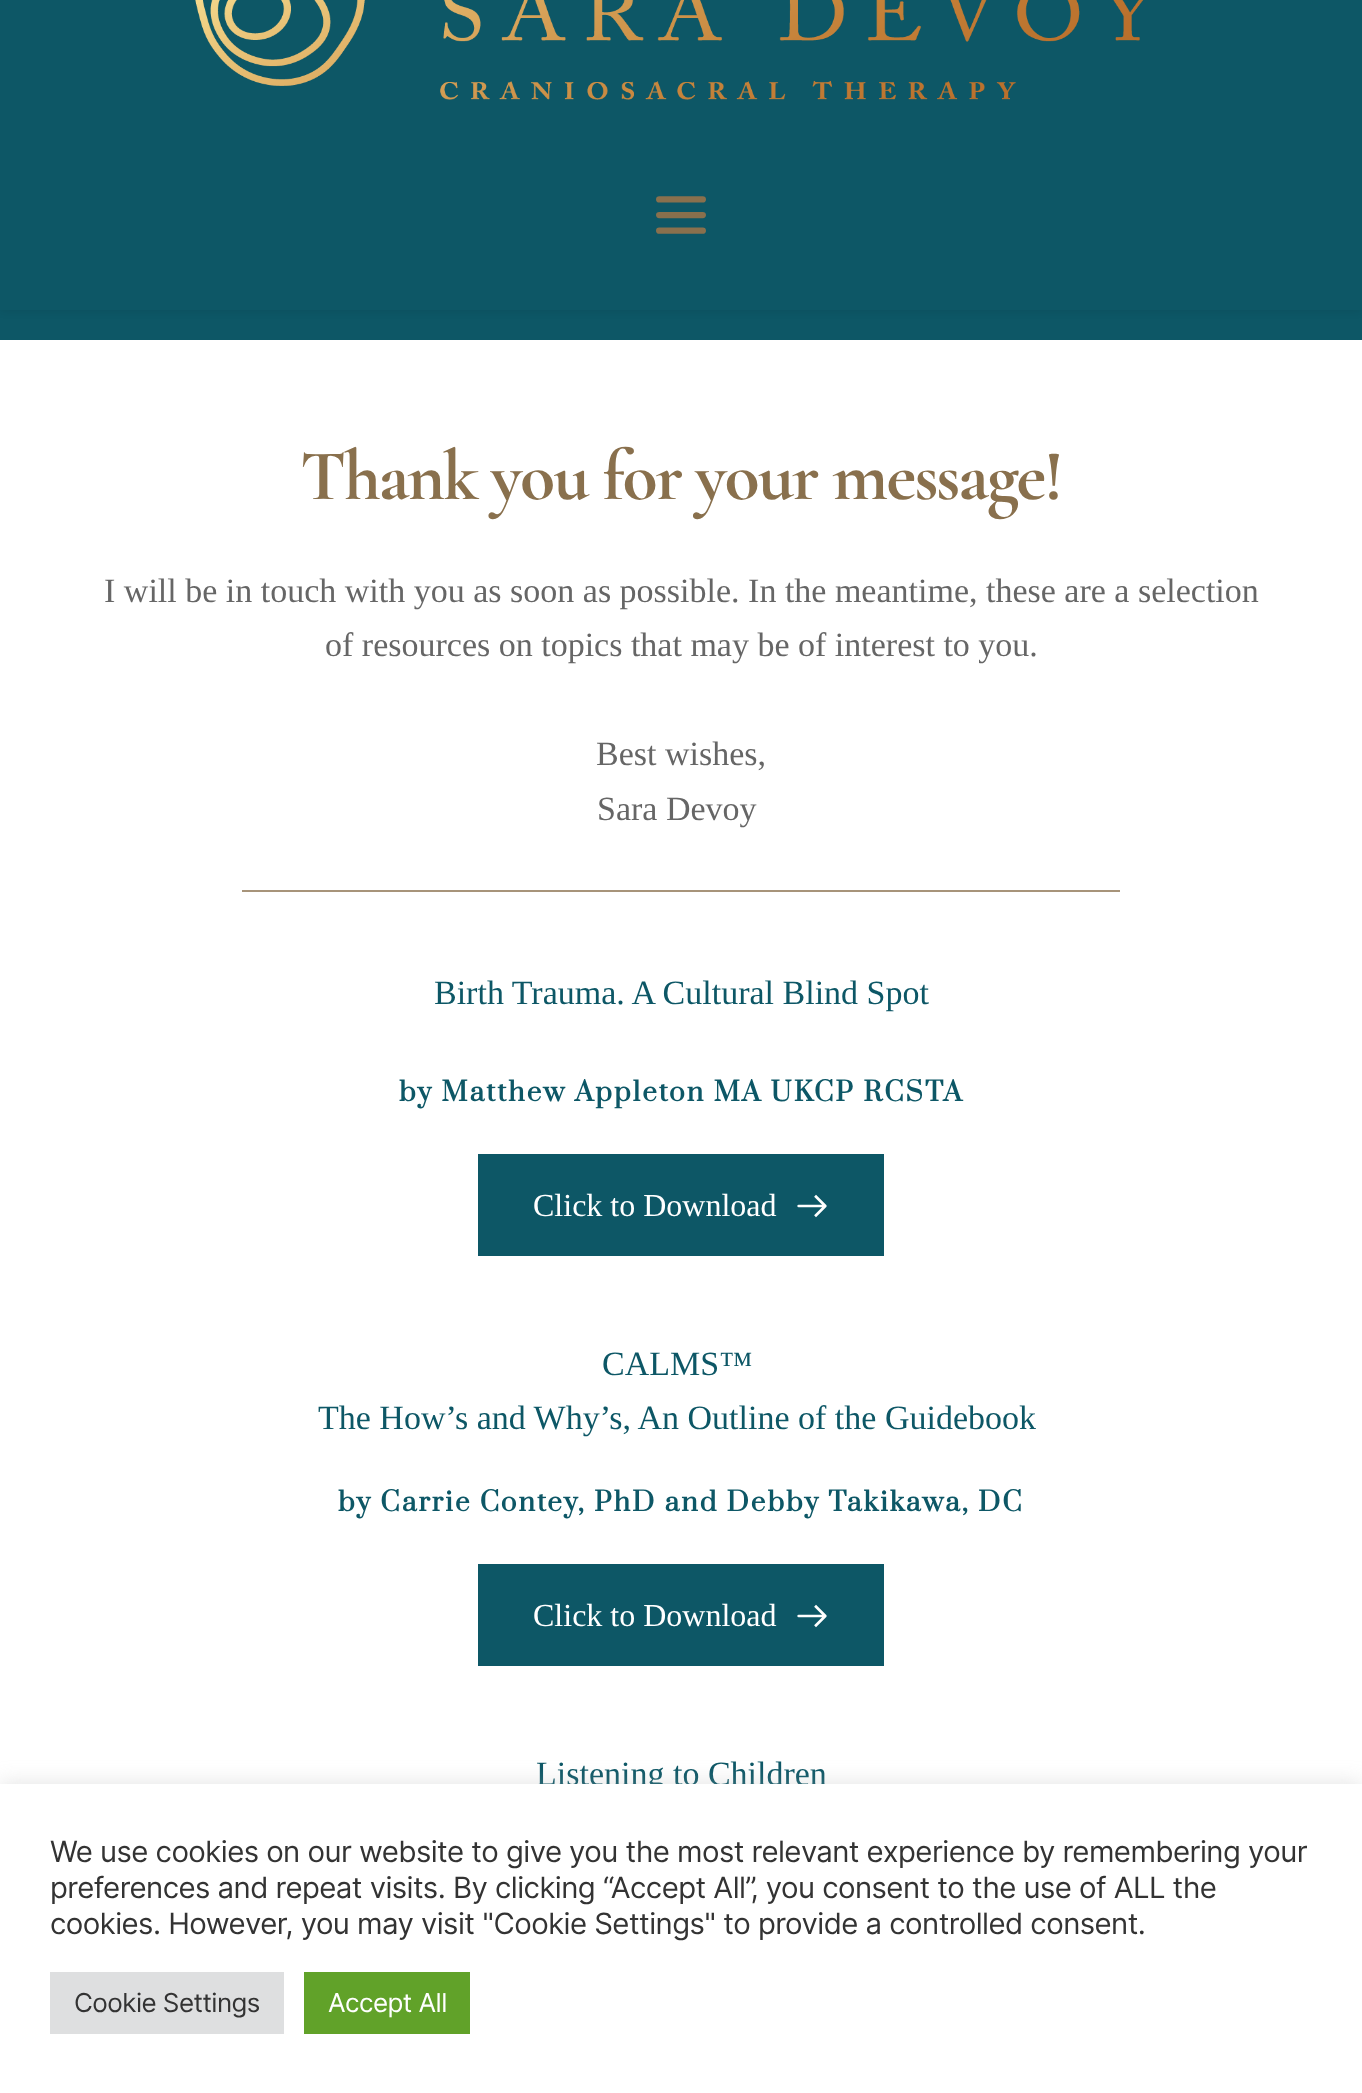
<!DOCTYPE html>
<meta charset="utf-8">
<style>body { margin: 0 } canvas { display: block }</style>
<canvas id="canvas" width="1362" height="2093"></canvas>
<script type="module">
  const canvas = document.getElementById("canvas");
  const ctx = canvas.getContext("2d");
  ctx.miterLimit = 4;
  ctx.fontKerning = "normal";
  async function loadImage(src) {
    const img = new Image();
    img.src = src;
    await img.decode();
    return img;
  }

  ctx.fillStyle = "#ffffff";
  ctx.fillRect(0, 0, 1362, 2093);
  ctx.fillStyle = "#0d5766";
  ctx.fillRect(0, 310, 1362, 30);
  ctx.fillStyle = "rgba(0, 0, 0, 0.1)";
  ctx.filter = "blur(5px)";
  ctx.beginPath();
  ctx.rect(0, -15, 1362, 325);
  ctx.fill();
  ctx.filter = "none";
  ctx.fillStyle = "#0d5766";
  ctx.fillRect(0, 0, 1362, 310);
  ctx.drawImage(await loadImage("img1.png"), 195, 0, 949, 100);
  ctx.drawImage(await loadImage("img2.png"), 656, 196, 50, 38);
  ctx.letterSpacing = "-2px";
  ctx.font = "300 72px Cormorant Garamond";
  ctx.fillStyle = "#89704d";
  ctx.fillText("Thank you for your message!", 300, 499);
  ctx.letterSpacing = "0px";
  ctx.font = "34px Liberation Serif";
  ctx.fillStyle = "#666666";
  ctx.fillText("I will be in touch with you as soon as possible. In the meantime, these are a selection", 104, 602);
  ctx.fillText("of resources on topics that may be of interest to you.", 325, 656);
  ctx.fillText("Best wishes,", 596, 765);
  ctx.fillText("Sara Devoy", 597, 820);
  ctx.fillStyle = "#a7947a";
  ctx.fillRect(242, 890, 878, 2);
  ctx.fillStyle = "#0d5766";
  ctx.fillText("Birth Trauma. A Cultural Blind Spot", 434, 1004);
  ctx.letterSpacing = "2px";
  ctx.font = "bold 26px Prata";
  ctx.fillText("by Matthew Appleton MA UKCP RCSTA", 399, 1101);
  ctx.fillRect(478, 1154, 406, 102);
  ctx.letterSpacing = "0px";
  ctx.font = "32px Liberation Serif";
  ctx.fillStyle = "#ffffff";
  ctx.fillText("Click to Download", 533, 1216);
  ctx.drawImage(await loadImage("img3.png"), 797, 1194, 30, 24);
  ctx.font = "34px Liberation Serif";
  ctx.fillStyle = "#0d5766";
  ctx.fillText("CALMS™", 602, 1375);
  ctx.fillText("The How’s and Why’s, An Outline of the Guidebook", 318, 1429);
  ctx.letterSpacing = "2px";
  ctx.font = "bold 26px Prata";
  ctx.fillText("by Carrie Contey, PhD and Debby Takikawa, DC", 338, 1511);
  ctx.fillRect(478, 1564, 406, 102);
  ctx.letterSpacing = "0px";
  ctx.font = "32px Liberation Serif";
  ctx.fillStyle = "#ffffff";
  ctx.fillText("Click to Download", 533, 1626);
  ctx.drawImage(await loadImage("img3.png"), 797, 1604, 30, 24);
  ctx.font = "34px Liberation Serif";
  ctx.fillStyle = "#0d5766";
  ctx.fillText("Listening to Children", 536, 1785);
  ctx.fillStyle = "rgba(172, 171, 171, 0.3)";
  ctx.filter = "blur(10px)";
  ctx.beginPath();
  ctx.rect(0, 1782, 1362, 310);
  ctx.fill();
  ctx.filter = "none";
  ctx.fillStyle = "#ffffff";
  ctx.fillRect(0, 1784, 1362, 309);
  ctx.letterSpacing = "-0.55px";
  ctx.font = "29.35px Inter";
  ctx.fillStyle = "#333333";
  ctx.fillText("We use cookies on our website to give you the most relevant experience by remembering your", 50, 1862);
  ctx.fillText("preferences and repeat visits. By clicking “Accept All”, you consent to the use of ALL the", 50, 1898);
  ctx.fillText("cookies. However, you may visit \"Cookie Settings\" to provide a controlled consent.", 50, 1934);
  ctx.fillStyle = "#dedfe0";
  ctx.fillRect(50, 1972, 234, 62);
  ctx.font = "26px Inter";
  ctx.fillStyle = "#333333";
  ctx.fillText("Cookie Settings", 74, 2012);
  ctx.fillStyle = "#61a229";
  ctx.fillRect(304, 1972, 166, 62);
  ctx.fillStyle = "#ffffff";
  ctx.fillText("Accept All", 328, 2012);
</script>
